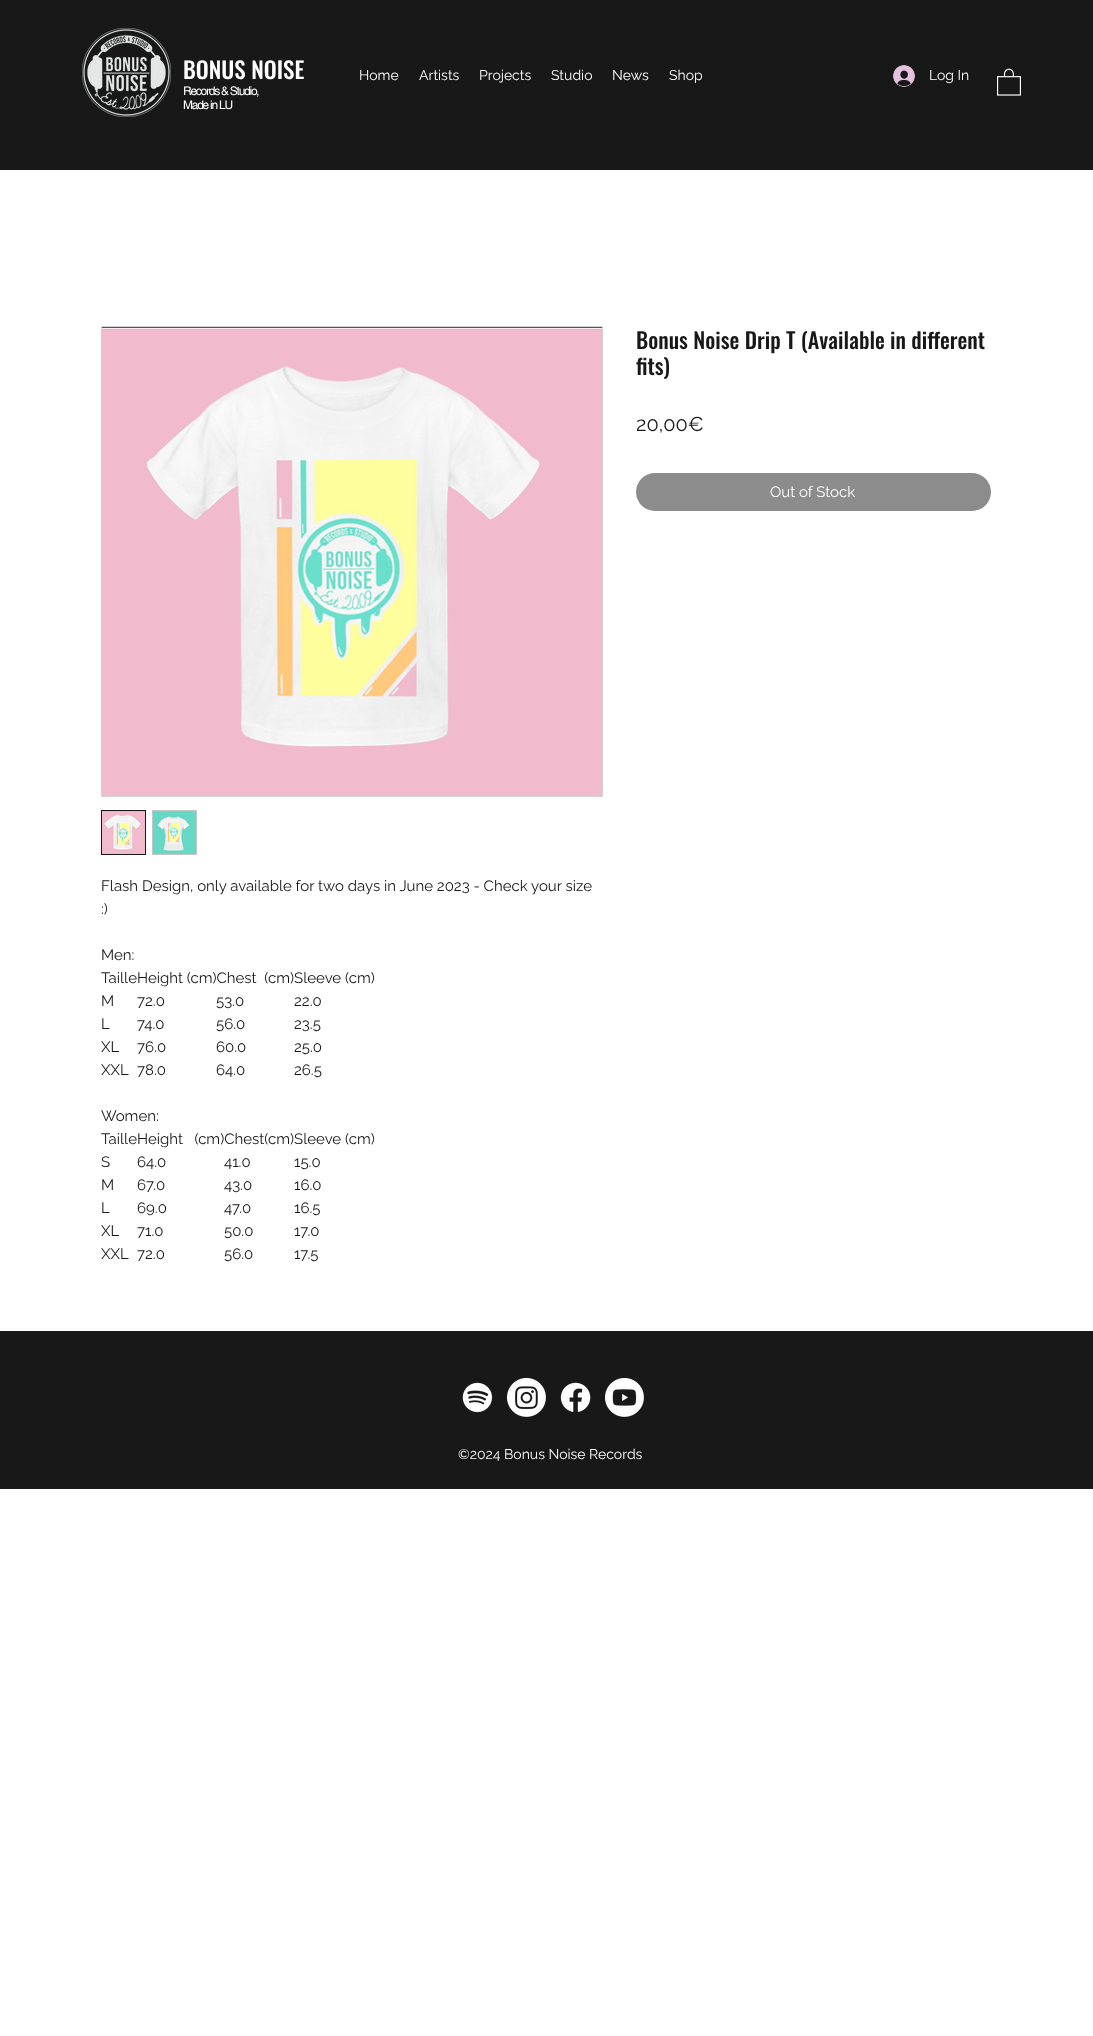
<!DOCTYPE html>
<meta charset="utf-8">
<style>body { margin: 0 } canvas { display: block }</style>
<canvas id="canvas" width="1093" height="2036"></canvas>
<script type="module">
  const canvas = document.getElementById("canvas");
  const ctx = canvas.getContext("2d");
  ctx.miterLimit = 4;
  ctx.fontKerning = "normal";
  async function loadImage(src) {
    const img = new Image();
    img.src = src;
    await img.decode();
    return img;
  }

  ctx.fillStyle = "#ffffff";
  ctx.fillRect(0, 0, 1093, 2036);
  ctx.fillStyle = "#181818";
  ctx.fillRect(0, 0, 1093, 170);
  ctx.drawImage(await loadImage("img1.png"), 82, 28, 89, 89);
  ctx.font = "500 23px Oswald";
  ctx.fillStyle = "#ffffff";
  ctx.fillText("BONUS NOISE", 183, 79);
  ctx.letterSpacing = "-1.25px";
  ctx.font = "12px helvetica";
  ctx.fillText("Records & Studio,", 183, 95);
  ctx.fillText("Made in LU", 183, 109);
  ctx.drawImage(await loadImage("img2.png"), 893, 65, 22, 22);
  ctx.letterSpacing = "0px";
  ctx.font = "14px Raleway";
  ctx.fillText("Log In", 929, 80);
  ctx.drawImage(await loadImage("img3.png"), 997, 68, 24, 28);
  ctx.fillText("Home", 359, 80);
  ctx.fillText("Artists", 419, 80);
  ctx.fillText("Projects", 479, 80);
  ctx.fillText("Studio", 551, 80);
  ctx.fillText("News", 612, 80);
  ctx.fillText("Shop", 669, 80);
  ctx.font = "500 22px Oswald";
  ctx.fillStyle = "#181818";
  ctx.fillText("Bonus Noise Drip T (Available in different", 636, 349);
  ctx.fillText("fits)", 636, 375);
  ctx.font = "20px Raleway";
  ctx.fillText("20,00€", 636, 431);
  ctx.fillStyle = "#8c8c8c";
  ctx.beginPath();
  ctx.roundRect(636, 473, 355, 38, 19);
  ctx.fill();
  ctx.font = "15px Raleway";
  ctx.fillStyle = "#ffffff";
  ctx.fillText("Out of Stock", 770, 497);
  ctx.strokeStyle = "#d1d1d1";
  ctx.strokeRect(101.5, 326.5, 501, 470);
  ctx.drawImage(await loadImage("img4.png"), 102, 327, 500, 469);
  ctx.strokeStyle = "#181818";
  ctx.strokeRect(101.5, 810.5, 44, 44);
  ctx.drawImage(await loadImage("img5.png"), 102, 811, 43, 43);
  ctx.strokeStyle = "#c5c5c5";
  ctx.strokeRect(152.5, 810.5, 44, 44);
  ctx.drawImage(await loadImage("img6.png"), 153, 811, 43, 43);
  ctx.fillStyle = "#181818";
  ctx.fillText("Flash Design, only available for two days in June 2023 - Check your size", 101, 891);
  ctx.fillText(":)", 101, 914);
  ctx.fillText("Men:", 101, 960);
  ctx.fillText("TailleHeight (cm)Chest  (cm)Sleeve (cm)", 101, 983);
  ctx.fillText("M", 101, 1006);
  ctx.fillText("72.0", 137, 1006);
  ctx.fillText("53.0", 216, 1006);
  ctx.fillText("22.0", 294, 1006);
  ctx.fillText("L", 101, 1029);
  ctx.fillText("74.0", 137, 1029);
  ctx.fillText("56.0", 216, 1029);
  ctx.fillText("23.5", 294, 1029);
  ctx.fillText("XL", 101, 1052);
  ctx.fillText("76.0", 137, 1052);
  ctx.fillText("60.0", 216, 1052);
  ctx.fillText("25.0", 294, 1052);
  ctx.fillText("XXL", 101, 1075);
  ctx.fillText("78.0", 137, 1075);
  ctx.fillText("64.0", 216, 1075);
  ctx.fillText("26.5", 294, 1075);
  ctx.fillText("Women:", 101, 1121);
  ctx.fillText("TailleHeight   (cm)Chest(cm)Sleeve (cm)", 101, 1144);
  ctx.fillText("S", 101, 1167);
  ctx.fillText("64.0", 137, 1167);
  ctx.fillText("41.0", 224, 1167);
  ctx.fillText("15.0", 294, 1167);
  ctx.fillText("M", 101, 1190);
  ctx.fillText("67.0", 137, 1190);
  ctx.fillText("43.0", 224, 1190);
  ctx.fillText("16.0", 294, 1190);
  ctx.fillText("L", 101, 1213);
  ctx.fillText("69.0", 137, 1213);
  ctx.fillText("47.0", 224, 1213);
  ctx.fillText("16.5", 294, 1213);
  ctx.fillText("XL", 101, 1236);
  ctx.fillText("71.0", 137, 1236);
  ctx.fillText("50.0", 224, 1236);
  ctx.fillText("17.0", 294, 1236);
  ctx.fillText("XXL", 101, 1259);
  ctx.fillText("72.0", 137, 1259);
  ctx.fillText("56.0", 224, 1259);
  ctx.fillText("17.5", 294, 1259);
  ctx.fillRect(0, 1331, 1093, 158);
  ctx.drawImage(await loadImage("img7.png"), 462, 1382, 31, 31);
  ctx.drawImage(await loadImage("img8.png"), 507, 1378, 39, 39);
  ctx.drawImage(await loadImage("img9.png"), 560, 1382, 31, 30);
  ctx.drawImage(await loadImage("img10.png"), 605, 1378, 39, 39);
  ctx.font = "14px Raleway";
  ctx.fillStyle = "#ffffff";
  ctx.fillText("©2024 Bonus Noise Records", 458, 1459);
</script>
